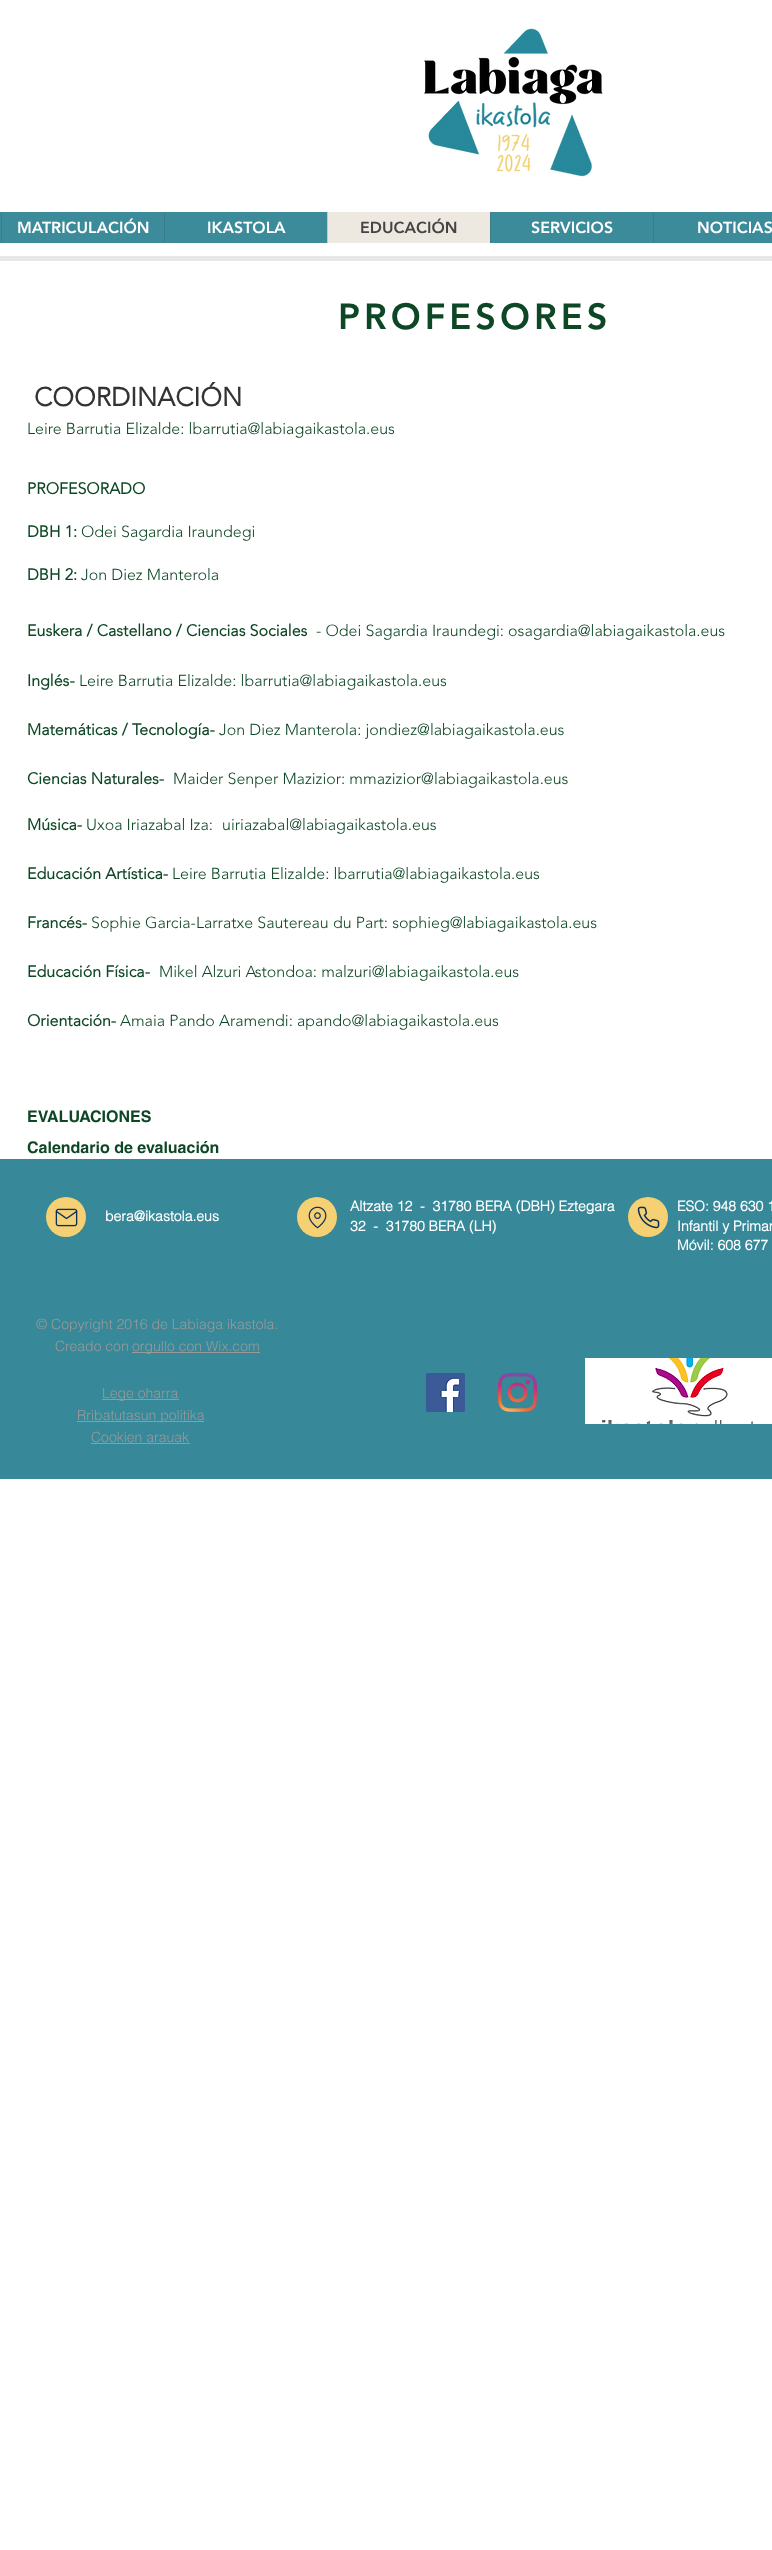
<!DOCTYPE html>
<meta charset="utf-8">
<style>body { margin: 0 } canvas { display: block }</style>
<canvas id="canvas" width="772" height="2550"></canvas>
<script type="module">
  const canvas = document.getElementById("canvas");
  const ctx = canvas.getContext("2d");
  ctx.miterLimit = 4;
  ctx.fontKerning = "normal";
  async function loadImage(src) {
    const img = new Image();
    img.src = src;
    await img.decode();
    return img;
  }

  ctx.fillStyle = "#ffffff";
  ctx.fillRect(0, 0, 772, 2550);
  ctx.drawImage(await loadImage("img1.png"), 424, 28, 179, 149);
  ctx.fillStyle = "#3b8b9b";
  ctx.fillRect(0, 212, 772, 31);
  ctx.fillStyle = "#3c7c89";
  ctx.fillRect(1, 212, 1, 31);
  ctx.font = "900 16px 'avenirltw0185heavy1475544'";
  ctx.fillStyle = "#ffffff";
  ctx.fillText("MATRICULACIÓN", 17, 233);
  ctx.fillStyle = "#3c7c89";
  ctx.fillRect(164, 212, 1, 31);
  ctx.fillStyle = "#ffffff";
  ctx.fillText("IKASTOLA", 207, 233);
  ctx.fillStyle = "#ede9e1";
  ctx.fillRect(328, 212, 162, 31);
  ctx.fillStyle = "#cbc7c1";
  ctx.fillRect(327, 212, 1, 31);
  ctx.fillStyle = "#444444";
  ctx.fillText("EDUCACIÓN", 360, 233);
  ctx.fillStyle = "#3c7c89";
  ctx.fillRect(490, 212, 1, 31);
  ctx.fillStyle = "#ffffff";
  ctx.fillText("SERVICIOS", 531, 233);
  ctx.fillStyle = "#3c7c89";
  ctx.fillRect(653, 212, 1, 31);
  ctx.fillStyle = "#ffffff";
  ctx.fillText("NOTICIAS", 697, 233);
  ctx.fillStyle = "#e7e7e7";
  ctx.fillRect(0, 256, 772, 5);
  ctx.letterSpacing = "4px";
  ctx.font = "900 36px 'avenirltw0185heavy1475544'";
  ctx.fillStyle = "#0e4725";
  ctx.fillText("PROFESORES", 338, 329);
  ctx.letterSpacing = "0px";
  ctx.font = "bold 26px 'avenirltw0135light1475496'";
  ctx.fillStyle = "#333333";
  ctx.fillText("COORDINACIÓN", 34, 406);
  ctx.font = "300 16px 'avenirltw0135light1475496'";
  ctx.fillStyle = "#0e4725";
  ctx.fillText("Leire Barrutia Elizalde: lbarrutia@labiagaikastola.eus", 27, 434);
  ctx.font = "bold 16px 'avenirltw0135light1475496'";
  ctx.fillText("PROFESORADO", 27, 494);
  ctx.fillText("DBH 1:", 27, 537);
  ctx.font = "300 16px 'avenirltw0135light1475496'";
  ctx.fillText("Odei Sagardia Iraundegi", 81, 537);
  ctx.font = "bold 16px 'avenirltw0135light1475496'";
  ctx.fillText("DBH 2:", 27, 580);
  ctx.font = "300 16px 'avenirltw0135light1475496'";
  ctx.fillText("Jon Diez Manterola", 81, 580);
  ctx.font = "bold 16px 'avenirltw0135light1475496'";
  ctx.fillText("Euskera / Castellano / Ciencias Sociales", 27, 636);
  ctx.font = "300 16px 'avenirltw0135light1475496'";
  ctx.fillText("- Odei Sagardia Iraundegi: osagardia@labiagaikastola.eus", 316, 636);
  ctx.font = "bold 16px 'avenirltw0135light1475496'";
  ctx.fillText("Inglés-", 27, 686);
  ctx.font = "300 16px 'avenirltw0135light1475496'";
  ctx.fillText("Leire Barrutia Elizalde: lbarrutia@labiagaikastola.eus", 79, 686);
  ctx.font = "bold 16px 'avenirltw0135light1475496'";
  ctx.fillText("Matemáticas / Tecnología-", 27, 735);
  ctx.font = "300 16px 'avenirltw0135light1475496'";
  ctx.fillText("Jon Diez Manterola: jondiez@labiagaikastola.eus", 219, 735);
  ctx.font = "bold 16px 'avenirltw0135light1475496'";
  ctx.fillText("Ciencias Naturales-", 27, 784);
  ctx.font = "300 16px 'avenirltw0135light1475496'";
  ctx.fillText("Maider Senper Mazizior: mmazizior@labiagaikastola.eus", 173, 784);
  ctx.font = "bold 16px 'avenirltw0135light1475496'";
  ctx.fillText("Música-", 27, 830);
  ctx.font = "300 16px 'avenirltw0135light1475496'";
  ctx.fillText("Uxoa Iriazabal Iza:", 86, 830);
  ctx.fillText("uiriazabal@labiagaikastola.eus", 222, 830);
  ctx.font = "bold 16px 'avenirltw0135light1475496'";
  ctx.fillText("Educación Artística-", 27, 879);
  ctx.font = "300 16px 'avenirltw0135light1475496'";
  ctx.fillText("Leire Barrutia Elizalde: lbarrutia@labiagaikastola.eus", 172, 879);
  ctx.font = "bold 16px 'avenirltw0135light1475496'";
  ctx.fillText("Francés-", 27, 928);
  ctx.font = "300 16px 'avenirltw0135light1475496'";
  ctx.fillText("Sophie Garcia-Larratxe Sautereau du Part: sophieg@labiagaikastola.eus", 91, 928);
  ctx.font = "bold 16px 'avenirltw0135light1475496'";
  ctx.fillText("Educación Física-", 27, 977);
  ctx.font = "300 16px 'avenirltw0135light1475496'";
  ctx.fillText("Mikel Alzuri Astondoa: malzuri@labiagaikastola.eus", 159, 977);
  ctx.font = "bold 16px 'avenirltw0135light1475496'";
  ctx.fillText("Orientación-", 27, 1026);
  ctx.font = "300 16px 'avenirltw0135light1475496'";
  ctx.fillText("Amaia Pando Aramendi: apando@labiagaikastola.eus", 120, 1026);
  ctx.font = "bold 16px helvetica";
  ctx.fillText("EVALUACIONES", 27, 1122);
  ctx.fillText("Calendario de evaluación", 27, 1153);
  ctx.fillStyle = "#378999";
  ctx.fillRect(0, 1159, 772, 320);
  ctx.fillStyle = "#f5d173";
  ctx.beginPath();
  ctx.arc(66, 1217, 20, 0, Math.PI * 2);
  ctx.fill();
  ctx.drawImage(await loadImage("img2.png"), 55, 1208, 23, 19);
  ctx.font = "bold 14px 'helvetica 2'";
  ctx.fillStyle = "#ffffff";
  ctx.fillText("bera@ikastola.eus", 105, 1221);
  ctx.fillStyle = "#f5d173";
  ctx.beginPath();
  ctx.arc(317, 1217, 20, 0, Math.PI * 2);
  ctx.fill();
  ctx.drawImage(await loadImage("img3.png"), 308, 1206, 19, 23);
  ctx.fillStyle = "#ffffff";
  ctx.fillText("Altzate 12  -  31780 BERA (DBH) Eztegara", 350, 1211);
  ctx.fillText("32  -  31780 BERA (LH)", 350, 1231);
  ctx.fillStyle = "#f5d173";
  ctx.beginPath();
  ctx.arc(648, 1217, 20, 0, Math.PI * 2);
  ctx.fill();
  ctx.drawImage(await loadImage("img4.png"), 637, 1206, 23, 23);
  ctx.fillStyle = "#ffffff";
  ctx.fillText("ESO: 948 630 1", 677, 1211);
  ctx.fillText("Infantil y Primar", 677, 1231);
  ctx.fillText("Móvil: 608 677", 677, 1250);
  ctx.font = "300 14px helvetica";
  ctx.fillStyle = "#999999";
  ctx.fillText("© Copyright 2016 de Labiaga ikastola.", 36, 1329);
  ctx.fillText("Creado con", 55, 1351);
  ctx.fillRect(132, 1352, 128, 1);
  ctx.fillText("orgullo con Wix.com", 132, 1351);
  ctx.fillRect(102, 1399, 77, 1);
  ctx.fillText("Lege oharra", 102, 1398);
  ctx.fillRect(77, 1421, 127, 1);
  ctx.fillText("Rribatutasun politika", 77, 1420);
  ctx.fillText("Cookien arauak", 91, 1442);
  ctx.fillRect(91, 1443, 99, 1);
  ctx.drawImage(await loadImage("img5.png"), 426, 1373, 39, 39);
  ctx.drawImage(await loadImage("img6.png"), 498, 1373, 39, 39);
  ctx.drawImage(await loadImage("img7.png"), 585, 1358, 187, 66);
</script>
